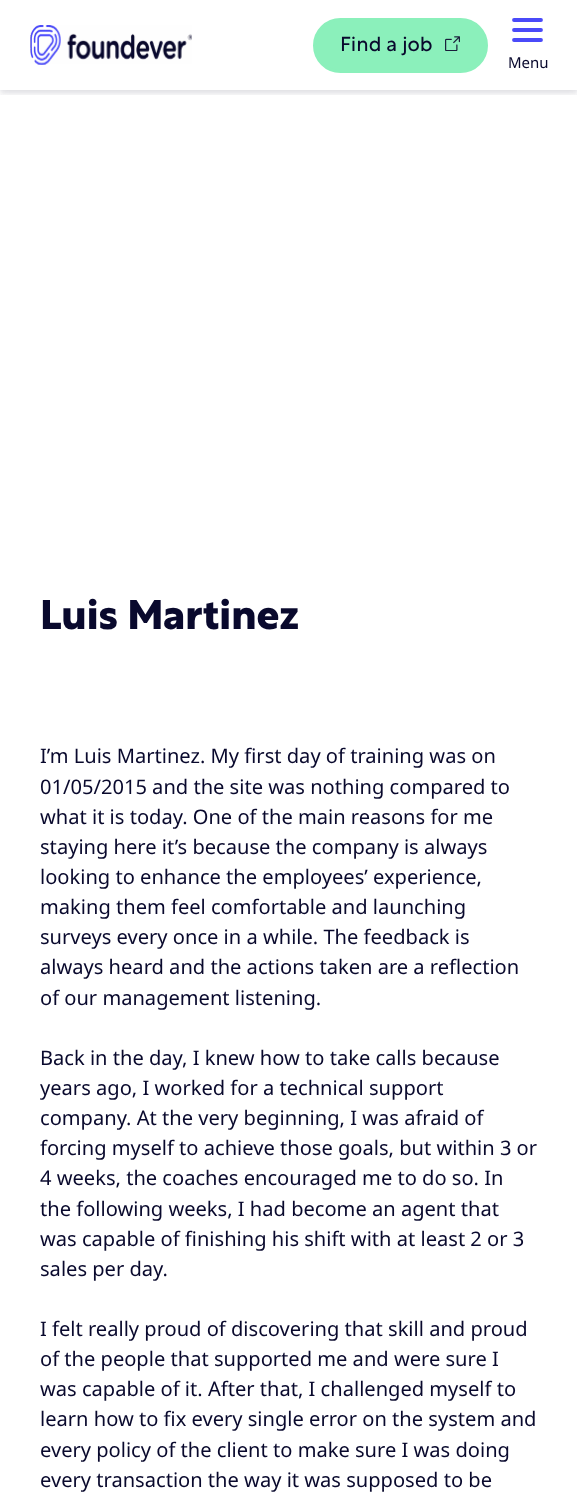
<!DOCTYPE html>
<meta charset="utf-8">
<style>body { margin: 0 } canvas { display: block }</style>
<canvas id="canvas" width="577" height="1497"></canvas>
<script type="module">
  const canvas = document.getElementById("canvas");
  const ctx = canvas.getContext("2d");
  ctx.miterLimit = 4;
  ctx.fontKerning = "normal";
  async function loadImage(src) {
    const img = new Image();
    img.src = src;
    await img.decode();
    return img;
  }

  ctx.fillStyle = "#ffffff";
  ctx.fillRect(0, 0, 577, 1497);
  ctx.save();
  ctx.beginPath();
  ctx.rect(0, 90, 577, 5);
  ctx.clip();
  ctx.fillStyle = "rgba(25, 29, 58, 0.1)";
  ctx.filter = "blur(5px)";
  ctx.beginPath();
  ctx.rect(0, 1, 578, 90);
  ctx.fill();
  ctx.filter = "none";
  ctx.fillStyle = "rgba(25, 29, 58, 0.07)";
  ctx.filter = "blur(2.5px)";
  ctx.beginPath();
  ctx.rect(0, 4, 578, 90);
  ctx.fill();
  ctx.filter = "none";
  ctx.restore();
  ctx.drawImage(await loadImage("img1.png"), 30, 25, 162, 40);
  ctx.fillStyle = "#8bf0bb";
  ctx.beginPath();
  ctx.roundRect(314.5, 19.5, 172, 52, 26);
  ctx.fill();
  ctx.strokeStyle = "#8bf0bb";
  ctx.lineWidth = 3;
  ctx.stroke();
  ctx.font = "20.1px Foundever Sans";
  ctx.fillStyle = "#09092d";
  ctx.fillText("Find a job", 340, 51);
  ctx.drawImage(await loadImage("img2.png"), 445, 36, 15, 15);
  ctx.beginPath();
  ctx.moveTo(514, 30);
  ctx.lineTo(541, 30);
  ctx.moveTo(514, 20);
  ctx.lineTo(541, 20);
  ctx.moveTo(514, 40);
  ctx.lineTo(541, 40);
  ctx.strokeStyle = "#4a4af9";
  ctx.lineWidth = 3.8;
  ctx.lineCap = "round";
  ctx.lineJoin = "round";
  ctx.stroke();
  ctx.font = "15px Noto Sans";
  ctx.fillText("Menu", 508, 68);
  ctx.font = "bold 40.5px Foundever Sans";
  ctx.fillText("Luis Martinez", 40, 629);
  ctx.font = "20.1px Noto Sans";
  ctx.fillText("I’m Luis Martinez. My first day of training was on", 40, 763);
  ctx.fillText("01/05/2015 and the site was nothing compared to", 40, 794);
  ctx.fillText("what it is today. One of the main reasons for me", 40, 824);
  ctx.fillText("staying here it’s because the company is always", 40, 854);
  ctx.fillText("looking to enhance the employees’ experience,", 40, 884);
  ctx.fillText("making them feel comfortable and launching", 40, 914);
  ctx.fillText("surveys every once in a while. The feedback is", 40, 944);
  ctx.fillText("always heard and the actions taken are a reflection", 40, 974);
  ctx.fillText("of our management listening.", 40, 1005);
  ctx.fillText("Back in the day, I knew how to take calls because", 40, 1065);
  ctx.fillText("years ago, I worked for a technical support", 40, 1095);
  ctx.fillText("company. At the very beginning, I was afraid of", 40, 1125);
  ctx.fillText("forcing myself to achieve those goals, but within 3 or", 40, 1155);
  ctx.fillText("4 weeks, the coaches encouraged me to do so. In", 40, 1185);
  ctx.fillText("the following weeks, I had become an agent that", 40, 1216);
  ctx.fillText("was capable of finishing his shift with at least 2 or 3", 40, 1246);
  ctx.fillText("sales per day.", 40, 1276);
  ctx.fillText("I felt really proud of discovering that skill and proud", 40, 1336);
  ctx.fillText("of the people that supported me and were sure I", 40, 1366);
  ctx.fillText("was capable of it. After that, I challenged myself to", 40, 1396);
  ctx.fillText("learn how to fix every single error on the system and", 40, 1426);
  ctx.fillText("every policy of the client to make sure I was doing", 40, 1457);
  ctx.fillText("every transaction the way it was supposed to be", 40, 1487);
</script>
